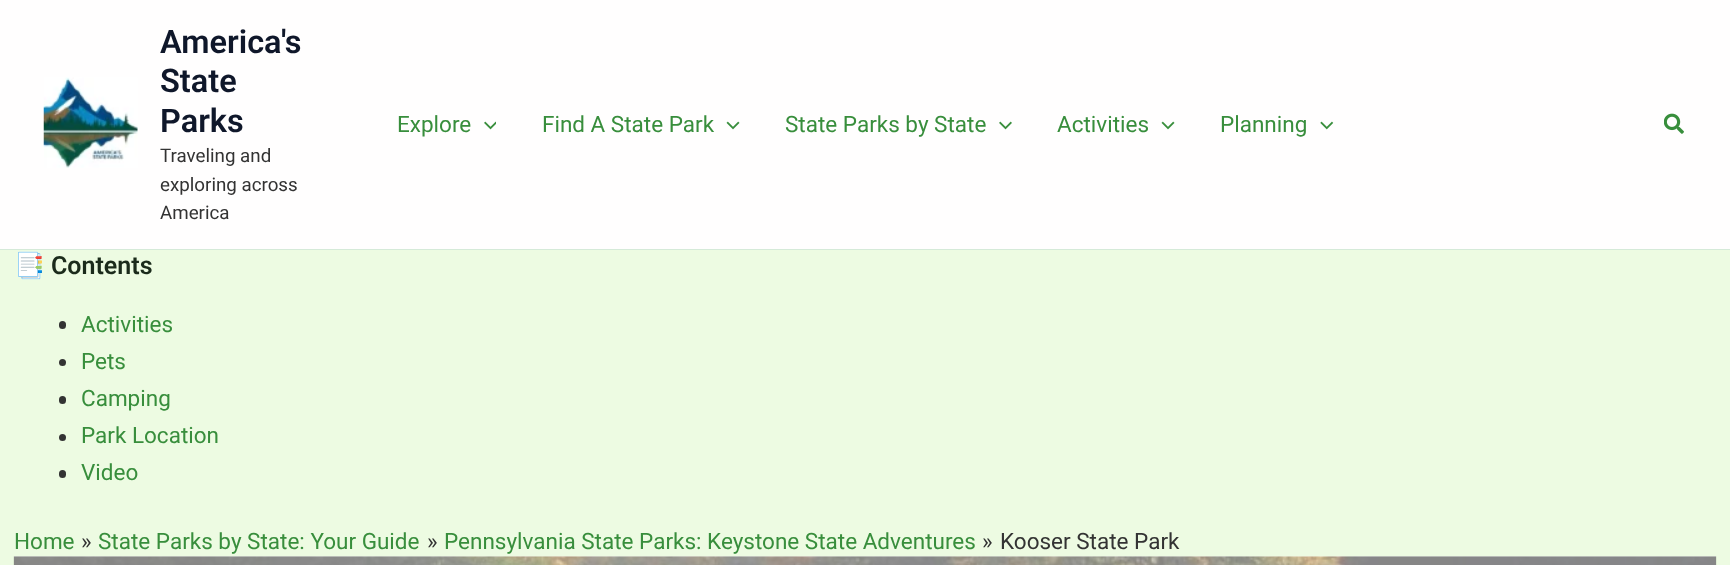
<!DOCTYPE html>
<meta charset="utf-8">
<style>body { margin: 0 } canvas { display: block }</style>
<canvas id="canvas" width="1730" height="565"></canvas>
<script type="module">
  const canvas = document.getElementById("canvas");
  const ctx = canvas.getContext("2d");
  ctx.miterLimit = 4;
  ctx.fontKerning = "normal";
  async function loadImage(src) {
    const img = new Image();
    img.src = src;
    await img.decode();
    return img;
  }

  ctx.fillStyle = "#edfbe2";
  ctx.fillRect(0, 0, 1730, 565);
  ctx.fillStyle = "#f6fdf1";
  ctx.fillRect(14, 556, 1702, 1);
  ctx.fillStyle = "#fffefe";
  ctx.fillRect(0, 0, 1730, 249);
  ctx.fillStyle = "#d5ead8";
  ctx.fillRect(0, 249, 1730, 1);
  ctx.drawImage(await loadImage("img1.png"), 43, 77, 95, 91);
  ctx.font = "600 32.5px Roboto";
  ctx.fillStyle = "#0f172a";
  ctx.fillText("America's", 160, 53);
  ctx.fillText("State", 160, 92);
  ctx.fillText("Parks", 160, 132);
  ctx.font = "18.75px Roboto";
  ctx.fillStyle = "#333333";
  ctx.fillText("Traveling and", 160, 162);
  ctx.fillText("exploring across", 160, 191);
  ctx.fillText("America", 160, 219);
  ctx.font = "22.5px Roboto";
  ctx.fillStyle = "#388e3c";
  ctx.fillText("Explore", 397, 132);
  ctx.drawImage(await loadImage("img2.png"), 484, 121, 12, 9);
  ctx.fillText("Find A State Park", 542, 132);
  ctx.drawImage(await loadImage("img3.png"), 726, 121, 14, 9);
  ctx.fillText("State Parks by State", 785, 132);
  ctx.drawImage(await loadImage("img4.png"), 999, 121, 13, 9);
  ctx.fillText("Activities", 1057, 132);
  ctx.drawImage(await loadImage("img5.png"), 1161, 121, 14, 9);
  ctx.fillText("Planning", 1220, 132);
  ctx.drawImage(await loadImage("img6.png"), 1320, 121, 14, 9);
  ctx.drawImage(await loadImage("img7.png"), 1664, 113, 20, 21);
  ctx.font = "bold 25px Noto Color Emoji";
  ctx.fillStyle = "#1b2b1b";
  ctx.fillText("📑", 14, 274);
  ctx.font = "600 25px Roboto";
  ctx.fillText("Contents", 51, 274);
  ctx.fillStyle = "#333333";
  ctx.beginPath();
  ctx.roundRect(59, 321, 7, 8, 3.5);
  ctx.fill();
  ctx.font = "22.5px Roboto";
  ctx.fillStyle = "#388e3c";
  ctx.fillText("Activities", 81, 332);
  ctx.fillStyle = "#333333";
  ctx.beginPath();
  ctx.arc(62.5, 362.5, 3.5, 0, Math.PI * 2);
  ctx.fill();
  ctx.fillStyle = "#388e3c";
  ctx.fillText("Pets", 81, 369);
  ctx.fillStyle = "#333333";
  ctx.beginPath();
  ctx.roundRect(59, 396, 7, 8, 3.5);
  ctx.fill();
  ctx.fillStyle = "#388e3c";
  ctx.fillText("Camping", 81, 406);
  ctx.fillStyle = "#333333";
  ctx.beginPath();
  ctx.arc(62.5, 437.5, 3.5, 0, Math.PI * 2);
  ctx.fill();
  ctx.fillStyle = "#388e3c";
  ctx.fillText("Park Location", 81, 443);
  ctx.fillStyle = "#333333";
  ctx.beginPath();
  ctx.roundRect(59, 470, 7, 8, 3.5);
  ctx.fill();
  ctx.fillStyle = "#388e3c";
  ctx.fillText("Video", 81, 480);
  ctx.fillText("Home", 14, 549);
  ctx.fillStyle = "#333333";
  ctx.fillText("»", 81, 549);
  ctx.fillStyle = "#388e3c";
  ctx.fillText("State Parks by State: Your Guide", 98, 549);
  ctx.fillStyle = "#333333";
  ctx.fillText("»", 427, 549);
  ctx.fillStyle = "#388e3c";
  ctx.fillText("Pennsylvania State Parks: Keystone State Adventures", 444, 549);
  ctx.fillStyle = "#333333";
  ctx.fillText("»", 982, 549);
  ctx.fillText("Kooser State Park", 1000, 549);
  ctx.drawImage(await loadImage("img8.png"), 13, 556, 1704, 9);
</script>
